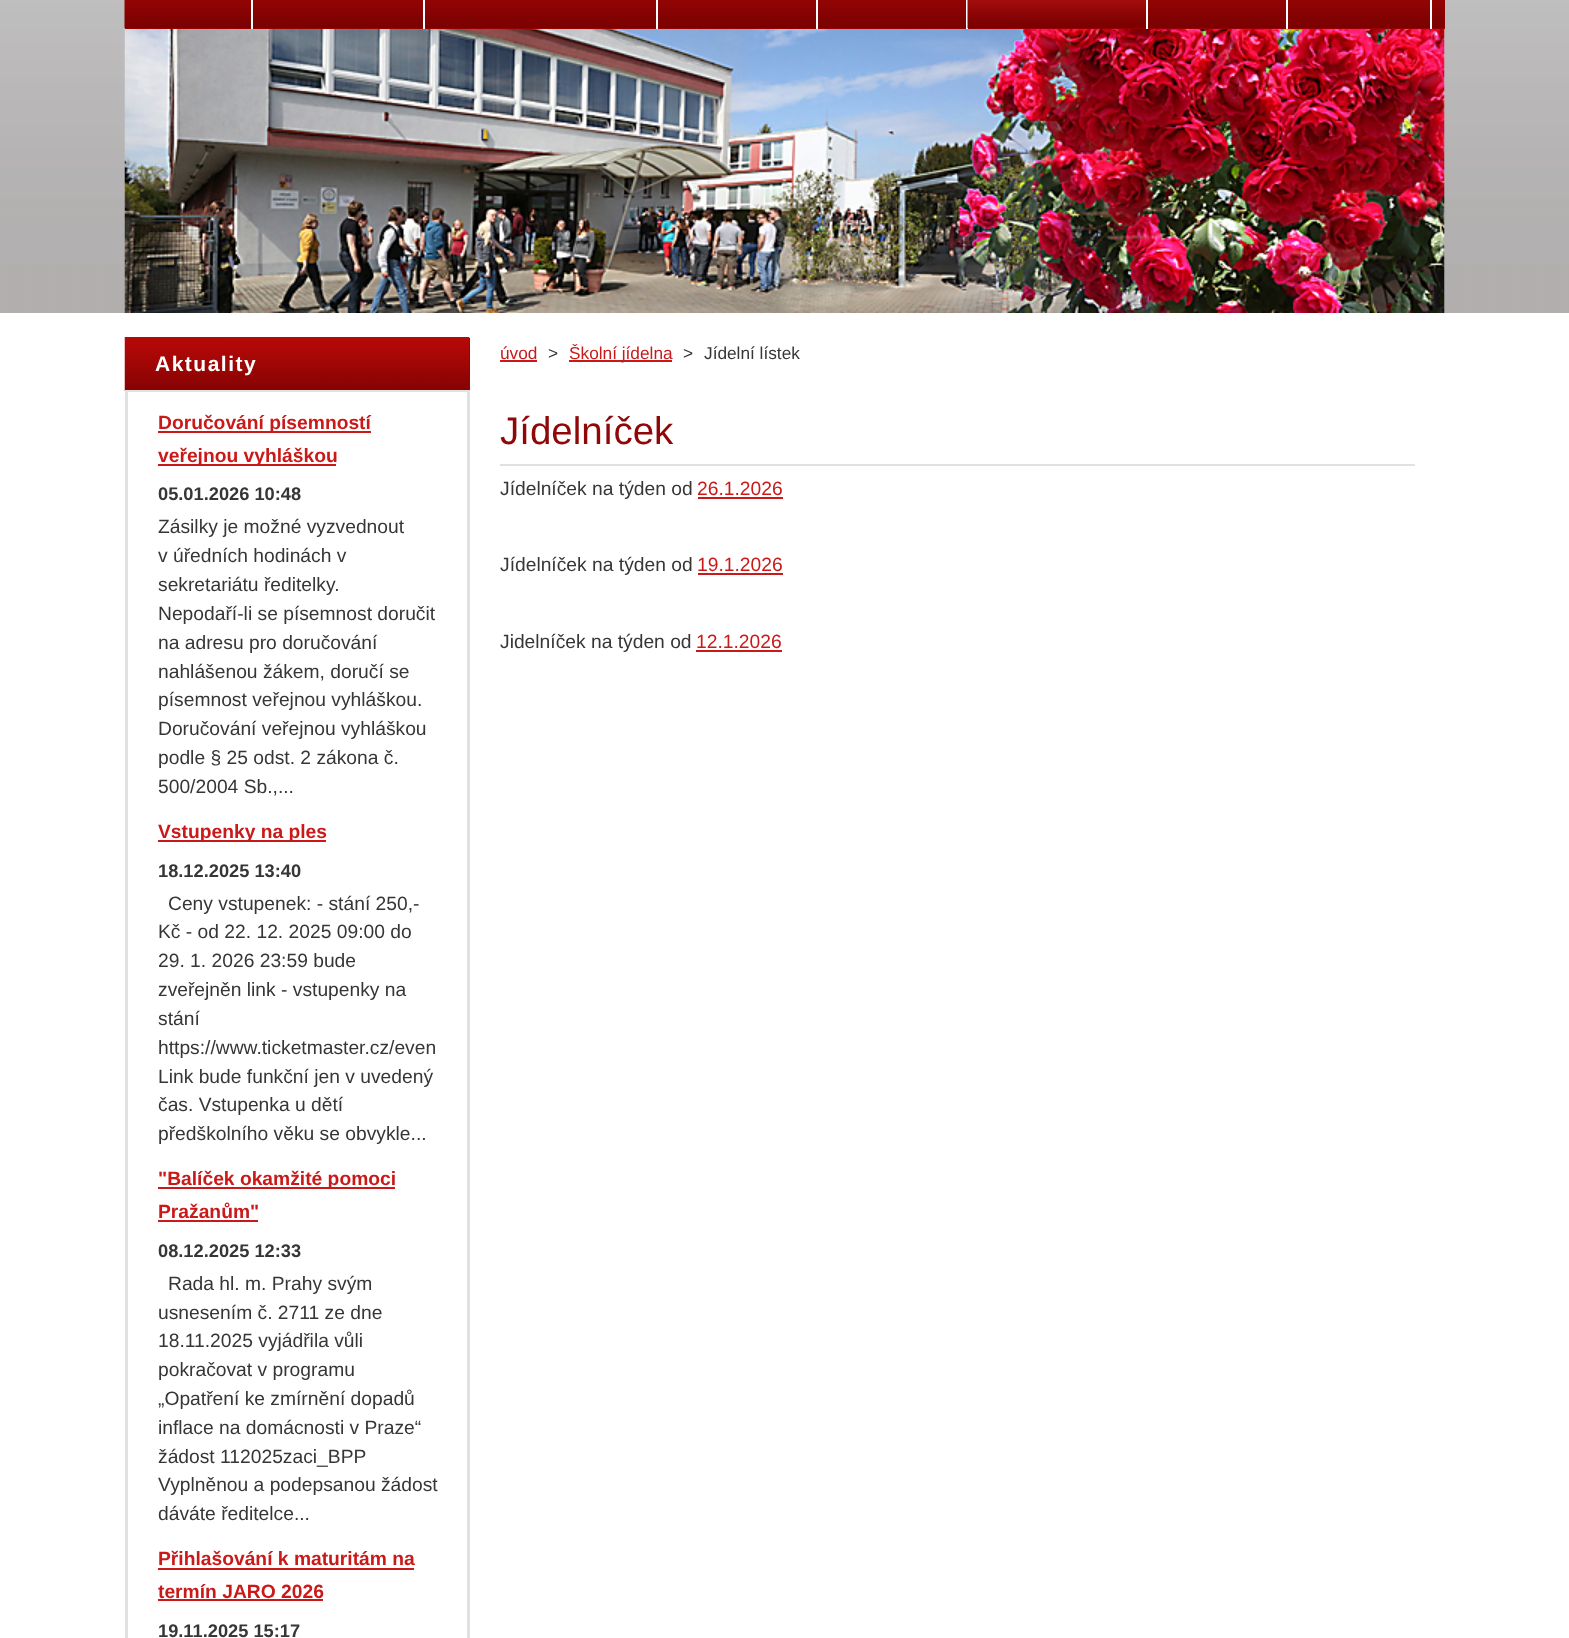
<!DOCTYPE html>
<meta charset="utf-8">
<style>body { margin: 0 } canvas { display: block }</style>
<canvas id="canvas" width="1569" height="1638"></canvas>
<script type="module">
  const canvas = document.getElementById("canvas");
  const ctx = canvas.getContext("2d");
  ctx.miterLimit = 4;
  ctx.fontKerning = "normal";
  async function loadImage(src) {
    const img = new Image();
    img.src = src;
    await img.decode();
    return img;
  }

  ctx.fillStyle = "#ffffff";
  ctx.fillRect(0, 0, 1569, 1638);
  ctx.drawImage(await loadImage("img1.png"), 0, 0, 1569, 313);
  ctx.drawImage(await loadImage("img4.png"), 124, 28, 1321, 285);
  ctx.fillStyle = "#990000";
  ctx.fillRect(125, 0, 1320, 29);
  ctx.drawImage(await loadImage("img2.png"), 124, 0, 1321, 28);
  ctx.fillStyle = "#ffffff";
  ctx.fillRect(251, 0, 2, 29);
  ctx.fillRect(423, 0, 2, 29);
  ctx.fillRect(656, 0, 2, 29);
  ctx.fillRect(816, 0, 2, 29);
  ctx.fillRect(966, 0, 2, 29);
  ctx.fillRect(1146, 0, 2, 29);
  ctx.drawImage(await loadImage("img3.png"), 967, 0, 179, 28);
  ctx.fillRect(1286, 0, 2, 29);
  ctx.fillRect(1430, 0, 2, 29);
  ctx.fillStyle = "#990000";
  ctx.fillRect(469, 338, 1, 52);
  ctx.drawImage(await loadImage("img5.png"), 124, 337, 346, 54);
  ctx.fillStyle = "#e1e1e1";
  ctx.fillRect(125, 390, 345, 2);
  ctx.letterSpacing = "1.5px";
  ctx.font = "bold 21px Liberation Sans";
  ctx.fillStyle = "#ffffff";
  ctx.fillText("Aktuality", 155, 371);
  ctx.fillStyle = "#e1e1e1";
  ctx.fillRect(467, 392, 3, 1246);
  ctx.fillRect(125, 392, 3, 1246);
  ctx.fillStyle = "#ca1919";
  ctx.fillRect(158, 431, 213, 2);
  ctx.letterSpacing = "0px";
  ctx.font = "bold 19.25px Liberation Sans";
  ctx.fillText("Doručování písemností", 158, 429);
  ctx.fillRect(158, 464, 178, 2);
  ctx.fillText("veřejnou vyhláškou", 158, 462);
  ctx.font = "bold 18.25px Liberation Sans";
  ctx.fillStyle = "#363636";
  ctx.fillText("05.01.2026 10:48", 158, 500);
  ctx.font = "19.25px Liberation Sans";
  ctx.fillText("Zásilky je možné vyzvednout", 158, 533);
  ctx.fillText("v úředních hodinách v", 158, 562);
  ctx.fillText("sekretariátu ředitelky.", 158, 591);
  ctx.fillText("Nepodaří-li se písemnost doručit", 158, 620);
  ctx.fillText("na adresu pro doručování", 158, 649);
  ctx.fillText("nahlášenou žákem, doručí se", 158, 678);
  ctx.fillText("písemnost veřejnou vyhláškou.", 158, 706);
  ctx.fillText("Doručování veřejnou vyhláškou", 158, 735);
  ctx.fillText("podle § 25 odst. 2 zákona č.", 158, 764);
  ctx.fillText("500/2004 Sb.,...", 158, 793);
  ctx.fillStyle = "#ca1919";
  ctx.fillRect(158, 840, 168, 2);
  ctx.font = "bold 19.25px Liberation Sans";
  ctx.fillText("Vstupenky na ples", 158, 838);
  ctx.font = "bold 18.25px Liberation Sans";
  ctx.fillStyle = "#363636";
  ctx.fillText("18.12.2025 13:40", 158, 877);
  ctx.font = "19.25px Liberation Sans";
  ctx.fillText("Ceny vstupenek: - stání 250,-", 168, 910);
  ctx.fillText("Kč - od 22. 12. 2025 09:00 do", 158, 938);
  ctx.fillText("29. 1. 2026 23:59 bude", 158, 967);
  ctx.fillText("zveřejněn link - vstupenky na", 158, 996);
  ctx.fillText("stání", 158, 1025);
  ctx.fillText("https://www.ticketmaster.cz/even", 158, 1054);
  ctx.fillText("Link bude funkční jen v uvedený", 158, 1083);
  ctx.fillText("čas. Vstupenka u dětí", 158, 1111);
  ctx.fillText("předškolního věku se obvykle...", 158, 1140);
  ctx.fillStyle = "#ca1919";
  ctx.fillRect(158, 1187, 237, 2);
  ctx.font = "bold 19.25px Liberation Sans";
  ctx.fillText("\"Balíček okamžité pomoci", 158, 1185);
  ctx.fillText("Pražanům\"", 158, 1218);
  ctx.fillRect(158, 1220, 100, 2);
  ctx.font = "bold 18.25px Liberation Sans";
  ctx.fillStyle = "#363636";
  ctx.fillText("08.12.2025 12:33", 158, 1257);
  ctx.font = "19.25px Liberation Sans";
  ctx.fillText("Rada hl. m. Prahy svým", 168, 1290);
  ctx.fillText("usnesením č. 2711 ze dne", 158, 1319);
  ctx.fillText("18.11.2025 vyjádřila vůli", 158, 1347);
  ctx.fillText("pokračovat v programu", 158, 1376);
  ctx.fillText("„Opatření ke zmírnění dopadů", 158, 1405);
  ctx.fillText("inflace na domácnosti v Praze“", 158, 1434);
  ctx.fillText("žádost 112025zaci_BPP", 158, 1463);
  ctx.fillText("Vyplněnou a podepsanou žádost", 158, 1491);
  ctx.fillText("dáváte ředitelce...", 158, 1520);
  ctx.font = "bold 19.25px Liberation Sans";
  ctx.fillStyle = "#ca1919";
  ctx.fillText("Přihlašování k maturitám na", 158, 1565);
  ctx.fillRect(158, 1568, 256, 2);
  ctx.fillText("termín JARO 2026", 158, 1598);
  ctx.fillRect(158, 1599, 165, 2);
  ctx.font = "bold 18.25px Liberation Sans";
  ctx.fillStyle = "#363636";
  ctx.fillText("19.11.2025 15:17", 158, 1637);
  ctx.font = "17.25px Liberation Sans";
  ctx.fillStyle = "#ca1919";
  ctx.fillText("úvod", 500, 359);
  ctx.fillRect(500, 360, 37, 2);
  ctx.fillStyle = "#363636";
  ctx.fillText(">", 548, 359);
  ctx.fillStyle = "#ca1919";
  ctx.fillRect(569, 360, 103, 2);
  ctx.fillText("Školní jídelna", 569, 359);
  ctx.fillStyle = "#363636";
  ctx.fillText(">", 683, 359);
  ctx.fillText("Jídelní lístek", 704, 359);
  ctx.fillStyle = "#e1e1e1";
  ctx.fillRect(500, 464, 915, 2);
  ctx.font = "38.5px Liberation Sans";
  ctx.fillStyle = "#900707";
  ctx.fillText("Jídelníček", 500, 444);
  ctx.font = "19.25px Liberation Sans";
  ctx.fillStyle = "#363636";
  ctx.fillText("Jídelníček na týden od", 500, 495);
  ctx.fillStyle = "#ca1919";
  ctx.fillText("26.1.2026", 697, 495);
  ctx.fillRect(698, 497, 85, 2);
  ctx.fillStyle = "#363636";
  ctx.fillText("Jídelníček na týden od", 500, 571);
  ctx.fillStyle = "#ca1919";
  ctx.fillText("19.1.2026", 697, 571);
  ctx.fillRect(698, 573, 85, 2);
  ctx.fillStyle = "#363636";
  ctx.fillText("Jidelníček na týden od", 500, 648);
  ctx.fillStyle = "#ca1919";
  ctx.fillText("12.1.2026", 696, 648);
  ctx.fillRect(696, 650, 86, 2);
</script>
